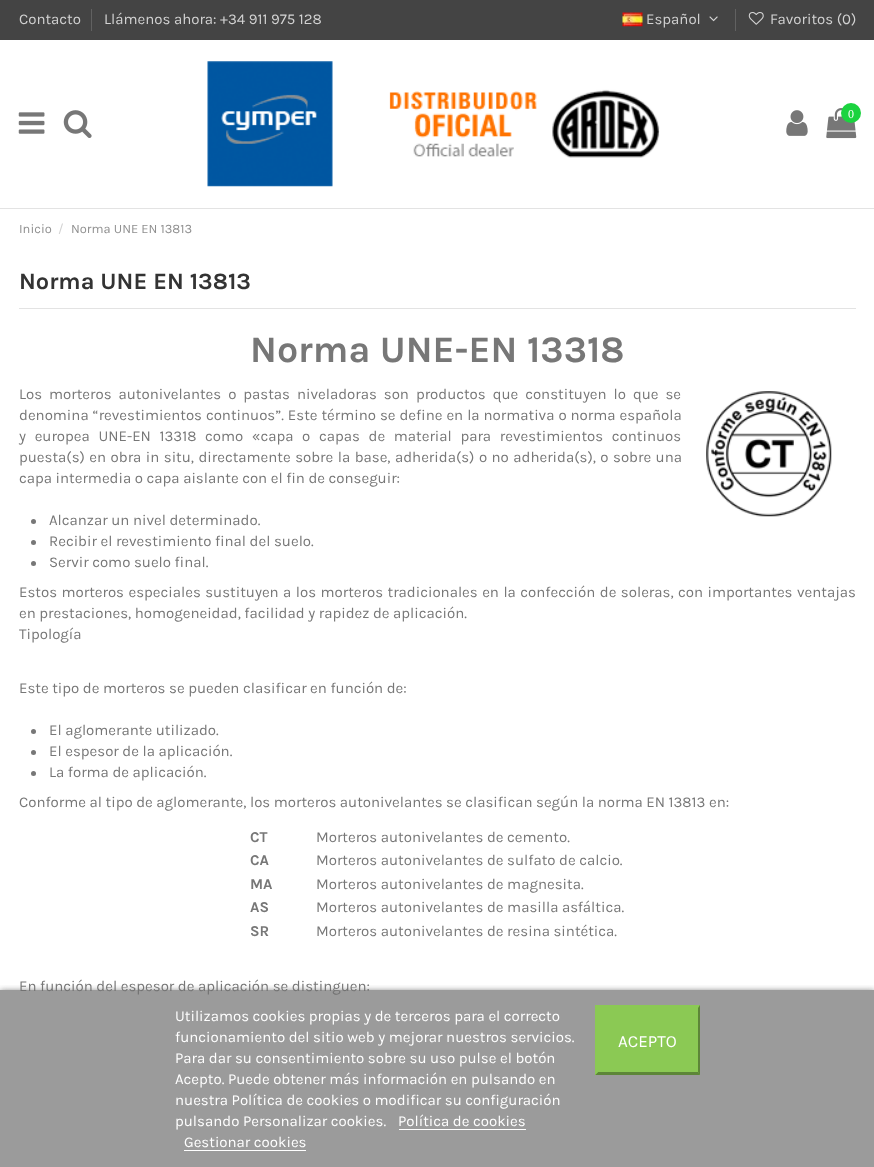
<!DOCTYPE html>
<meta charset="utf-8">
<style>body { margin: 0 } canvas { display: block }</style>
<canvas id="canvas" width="874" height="1167"></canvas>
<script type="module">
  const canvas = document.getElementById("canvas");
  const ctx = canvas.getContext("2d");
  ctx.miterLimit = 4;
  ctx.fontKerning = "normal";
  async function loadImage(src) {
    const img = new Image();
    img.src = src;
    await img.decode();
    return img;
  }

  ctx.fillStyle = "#ffffff";
  ctx.fillRect(0, 0, 874, 1167);
  ctx.fillStyle = "#444444";
  ctx.fillRect(0, 0, 874, 40);
  ctx.font = "15px Karla";
  ctx.fillStyle = "#d2d2d2";
  ctx.fillText("Contacto", 19, 24);
  ctx.fillStyle = "#616161";
  ctx.fillRect(91, 9, 1, 22);
  ctx.fillStyle = "#d2d2d2";
  ctx.fillText("Llámenos ahora: +34 911 975 128", 104, 24);
  ctx.drawImage(await loadImage("img1.png"), 622, 12, 21, 15);
  ctx.fillText("Español", 646, 24);
  ctx.drawImage(await loadImage("img2.png"), 709, 16, 9, 6);
  ctx.fillStyle = "#616161";
  ctx.fillRect(735, 9, 1, 22);
  ctx.drawImage(await loadImage("img3.png"), 748, 12, 16, 13);
  ctx.fillStyle = "#d2d2d2";
  ctx.fillText("Favoritos (0)", 770, 24);
  ctx.fillStyle = "#e3e3e3";
  ctx.fillRect(0, 208, 874, 1);
  ctx.drawImage(await loadImage("img4.png"), 18, 112, 27, 22);
  ctx.drawImage(await loadImage("img5.png"), 63, 110, 29, 28);
  ctx.drawImage(await loadImage("img6.png"), 207, 61, 453, 126);
  ctx.drawImage(await loadImage("img7.png"), 786, 110, 22, 26);
  ctx.drawImage(await loadImage("img8.png"), 826, 108, 31, 31);
  ctx.fillStyle = "#1bd33f";
  ctx.beginPath();
  ctx.arc(851, 113, 10, 0, Math.PI * 2);
  ctx.fill();
  ctx.font = "12px Liberation Serif";
  ctx.fillStyle = "#ffffff";
  ctx.fillText("0", 848, 118);
  ctx.font = "12.9px Karla";
  ctx.fillStyle = "#8f8f8f";
  ctx.fillText("Inicio", 19, 233);
  ctx.fillStyle = "#d2d2d2";
  ctx.fillText("/", 58, 233);
  ctx.fillStyle = "#8f8f8f";
  ctx.fillText("Norma UNE EN 13813", 71, 233);
  ctx.fillStyle = "#e3e3e3";
  ctx.fillRect(19, 308, 837, 1);
  ctx.font = "bold 23.5px Karla";
  ctx.fillStyle = "#333333";
  ctx.fillText("Norma UNE EN 13813", 19, 289);
  ctx.font = "bold 37.5px Karla";
  ctx.fillStyle = "#777777";
  ctx.fillText("Norma UNE-EN 13318", 250, 362);
  ctx.wordSpacing = "3.4px";
  ctx.font = "15px Karla";
  ctx.fillText("Los morteros autonivelantes o pastas niveladoras son productos que constituyen lo que se", 19, 399);
  ctx.wordSpacing = "0.4px";
  ctx.fillText("denomina “revestimientos continuos”. Este término se define en la normativa o norma española", 19, 420);
  ctx.wordSpacing = "5.1px";
  ctx.fillText("y europea UNE-EN 13318 como «capa o capas de material para revestimientos continuos", 19, 441);
  ctx.wordSpacing = "0.9px";
  ctx.fillText("puesta(s) en obra in situ, directamente sobre la base, adherida(s) o no adherida(s), o sobre una", 19, 462);
  ctx.wordSpacing = "0px";
  ctx.fillText("capa intermedia o capa aislante con el fin de conseguir:", 19, 483);
  ctx.drawImage(await loadImage("img9.png"), 706, 391, 126, 126);
  ctx.beginPath();
  ctx.arc(33.5, 521.5, 2.5, 0, Math.PI * 2);
  ctx.fill();
  ctx.fillText("Alcanzar un nivel determinado.", 49, 525);
  ctx.beginPath();
  ctx.arc(33.5, 542.5, 2.5, 0, Math.PI * 2);
  ctx.fill();
  ctx.fillText("Recibir el revestimiento final del suelo.", 49, 546);
  ctx.beginPath();
  ctx.arc(33.5, 563.5, 2.5, 0, Math.PI * 2);
  ctx.fill();
  ctx.fillText("Servir como suelo final.", 49, 567);
  ctx.wordSpacing = "0.9px";
  ctx.fillText("Estos morteros especiales sustituyen a los morteros tradicionales en la confección de soleras, con importantes ventajas", 19, 597);
  ctx.wordSpacing = "0px";
  ctx.fillText("en prestaciones, homogeneidad, facilidad y rapidez de aplicación.", 19, 618);
  ctx.fillText("Tipología", 19, 639);
  ctx.fillText("Este tipo de morteros se pueden clasificar en función de:", 19, 693);
  ctx.beginPath();
  ctx.arc(33.5, 731.5, 2.5, 0, Math.PI * 2);
  ctx.fill();
  ctx.fillText("El aglomerante utilizado.", 49, 735);
  ctx.beginPath();
  ctx.arc(33.5, 752.5, 2.5, 0, Math.PI * 2);
  ctx.fill();
  ctx.fillText("El espesor de la aplicación.", 49, 756);
  ctx.beginPath();
  ctx.arc(33.5, 773.5, 2.5, 0, Math.PI * 2);
  ctx.fill();
  ctx.fillText("La forma de aplicación.", 49, 777);
  ctx.fillText("Conforme al tipo de aglomerante, los morteros autonivelantes se clasifican según la norma EN 13813 en:", 19, 807);
  ctx.font = "bold 15px Karla";
  ctx.fillText("CT", 250, 842);
  ctx.font = "15px Karla";
  ctx.fillText("Morteros autonivelantes de cemento.", 316, 842);
  ctx.font = "bold 15px Karla";
  ctx.fillText("CA", 250, 865);
  ctx.font = "15px Karla";
  ctx.fillText("Morteros autonivelantes de sulfato de calcio.", 316, 865);
  ctx.font = "bold 15px Karla";
  ctx.fillText("MA", 250, 889);
  ctx.font = "15px Karla";
  ctx.fillText("Morteros autonivelantes de magnesita.", 316, 889);
  ctx.font = "bold 15px Karla";
  ctx.fillText("AS", 250, 912);
  ctx.font = "15px Karla";
  ctx.fillText("Morteros autonivelantes de masilla asfáltica.", 316, 912);
  ctx.font = "bold 15px Karla";
  ctx.fillText("SR", 250, 936);
  ctx.font = "15px Karla";
  ctx.fillText("Morteros autonivelantes de resina sintética.", 316, 936);
  ctx.fillText("En función del espesor de aplicación se distinguen:", 19, 991);
  ctx.save();
  ctx.beginPath();
  ctx.rect(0, 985, 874, 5);
  ctx.clip();
  ctx.fillStyle = "#707070";
  ctx.filter = "blur(3px)";
  ctx.beginPath();
  ctx.rect(0, 991, 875, 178);
  ctx.fill();
  ctx.filter = "none";
  ctx.restore();
  ctx.fillStyle = "rgba(112, 112, 112, 0.7)";
  ctx.fillRect(0, 990, 874, 177);
  ctx.fillStyle = "#ffffff";
  ctx.fillText("Utilizamos cookies propias y de terceros para el correcto", 175, 1021);
  ctx.fillText("funcionamiento del sitio web y mejorar nuestros servicios.", 175, 1042);
  ctx.fillText("Para dar su consentimiento sobre su uso pulse el botón", 175, 1063);
  ctx.fillText("Acepto. Puede obtener más información en pulsando en", 175, 1084);
  ctx.fillText("nuestra Política de cookies o modificar su configuración", 175, 1105);
  ctx.fillText("pulsando Personalizar cookies.", 175, 1126);
  ctx.fillText("Política de cookies", 398, 1126);
  ctx.fillRect(399, 1129, 127, 1);
  ctx.fillText("Gestionar cookies", 184, 1147);
  ctx.fillRect(184, 1150, 122, 1);
  ctx.fillStyle = "#8bc954";
  ctx.fillRect(595, 1005, 105, 70);
  ctx.fillStyle = "#5d8638";
  ctx.beginPath();
  ctx.moveTo(700, 1005);
  ctx.lineTo(700, 1075);
  ctx.lineTo(698, 1072);
  ctx.lineTo(698, 1008);
  ctx.closePath();
  ctx.fill();
  ctx.beginPath();
  ctx.moveTo(700, 1075);
  ctx.lineTo(595, 1075);
  ctx.lineTo(598, 1072);
  ctx.lineTo(698, 1072);
  ctx.closePath();
  ctx.fill();
  ctx.fillStyle = "#8bc954";
  ctx.beginPath();
  ctx.moveTo(595, 1075);
  ctx.lineTo(595, 1005);
  ctx.lineTo(598, 1008);
  ctx.lineTo(598, 1072);
  ctx.closePath();
  ctx.fill();
  ctx.font = "17px Karla";
  ctx.fillStyle = "#ffffff";
  ctx.fillText("ACEPTO", 618, 1047);
</script>
